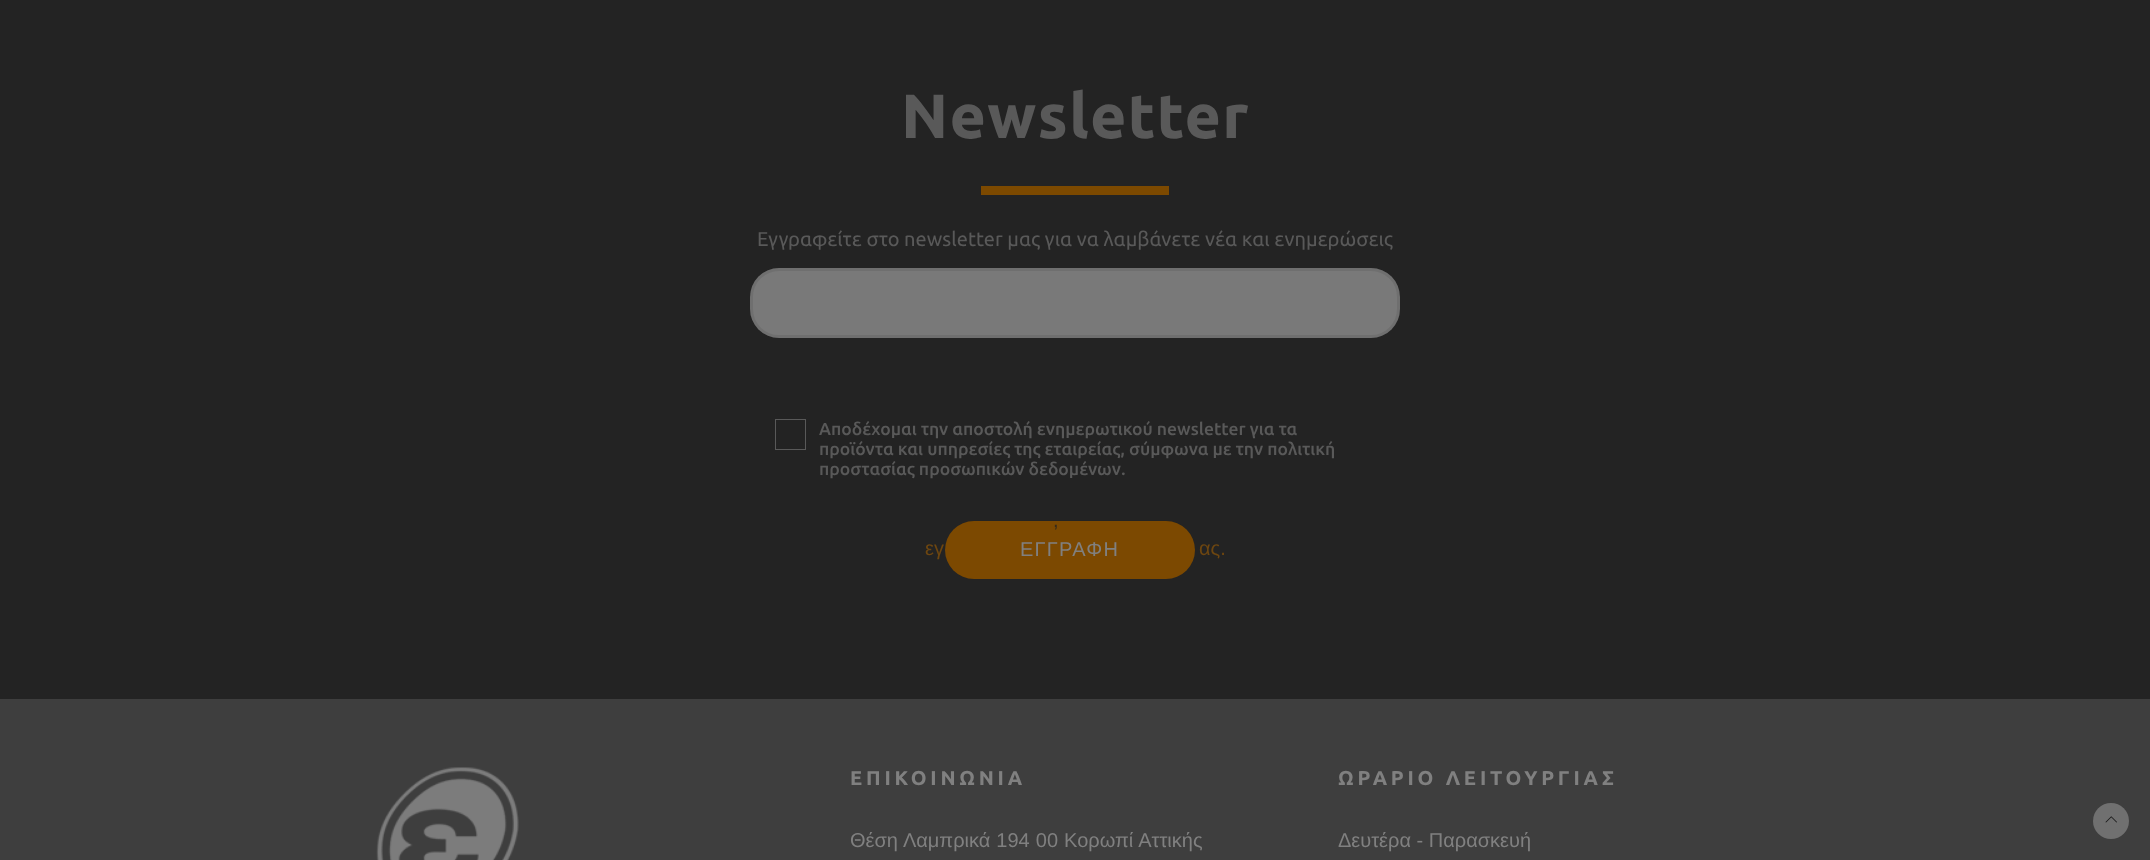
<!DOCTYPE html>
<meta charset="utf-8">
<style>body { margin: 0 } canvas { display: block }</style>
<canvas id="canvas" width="2150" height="860"></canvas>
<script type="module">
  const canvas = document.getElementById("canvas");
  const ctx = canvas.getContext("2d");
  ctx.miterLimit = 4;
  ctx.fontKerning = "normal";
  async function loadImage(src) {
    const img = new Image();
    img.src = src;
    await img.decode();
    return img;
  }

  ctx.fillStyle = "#232323";
  ctx.fillRect(0, 0, 2150, 860);
  ctx.letterSpacing = "1.25px";
  ctx.font = "bold 62.5px Ubuntu";
  ctx.fillStyle = "#595959";
  ctx.fillText("Newsletter", 901, 138);
  ctx.fillStyle = "#7c4900";
  ctx.fillRect(981, 186, 188, 9);
  ctx.letterSpacing = "0px";
  ctx.font = "20px Ubuntu";
  ctx.fillStyle = "#595959";
  ctx.fillText("Εγγραφείτε στο newsletter μας για να λαμβάνετε νέα και ενημερώσεις", 757, 246);
  ctx.fillStyle = "#797979";
  ctx.beginPath();
  ctx.roundRect(750, 268, 650, 70, 29);
  ctx.fill();
  ctx.beginPath();
  ctx.roundRect(751.5, 269.5, 647, 67, 27.5);
  ctx.strokeStyle = "rgba(26, 26, 26, 0.1)";
  ctx.lineWidth = 3;
  ctx.stroke();
  ctx.strokeStyle = "#595959";
  ctx.lineWidth = 1;
  ctx.strokeRect(775.5, 419.5, 30, 30);
  ctx.font = "500 17.5px Ubuntu";
  ctx.fillStyle = "#595959";
  ctx.fillText("Αποδέχομαι την αποστολή ενημερωτικού newsletter για τα", 819, 435);
  ctx.fillText("προϊόντα και υπηρεσίες της εταιρείας, σύμφωνα με την πολιτική", 819, 455);
  ctx.fillText("προστασίας προσωπικών δεδομένων.", 819, 475);
  ctx.fillStyle = "#7c4901";
  ctx.beginPath();
  ctx.roundRect(945, 521, 250, 58, 29);
  ctx.fill();
  ctx.letterSpacing = "1.25px";
  ctx.font = "20px Arimo";
  ctx.fillStyle = "#808080";
  ctx.fillText("ΕΓΓΡΑΦΗ", 1020, 556);
  ctx.fillStyle = "#3e3e3e";
  ctx.fillRect(0, 699, 2150, 161);
  ctx.drawImage(await loadImage("img1.png"), 376, 767, 143, 93);
  ctx.letterSpacing = "3.75px";
  ctx.font = "bold 20px Ubuntu";
  ctx.fillStyle = "#808080";
  ctx.fillText("ΕΠΙΚΟΙΝΩΝΙΑ", 850, 785);
  ctx.letterSpacing = "0px";
  ctx.wordSpacing = "0.5px";
  ctx.font = "20px Arimo";
  ctx.fillText("Θέση Λαμπρικά 194 00 Κορωπί Αττικής", 850, 847);
  ctx.letterSpacing = "3.75px";
  ctx.wordSpacing = "0px";
  ctx.font = "bold 20px Ubuntu";
  ctx.fillText("ΩΡΑΡΙΟ ΛΕΙΤΟΥΡΓΙΑΣ", 1338, 785);
  ctx.letterSpacing = "0px";
  ctx.font = "20px Arimo";
  ctx.fillText("Δευτέρα - Παρασκευή", 1338, 847);
  ctx.fillStyle = "#707070";
  ctx.beginPath();
  ctx.arc(2111, 821, 18, 0, Math.PI * 2);
  ctx.fill();
  ctx.drawImage(await loadImage("img2.png"), 2105, 816, 12, 7);
  ctx.fillStyle = "#352b1c";
  ctx.fillText(",", 1053, 527);
  ctx.fillStyle = "#6d4610";
  ctx.fillText("εγ", 925, 555);
  ctx.fillText("ας.", 1199, 555);
</script>
